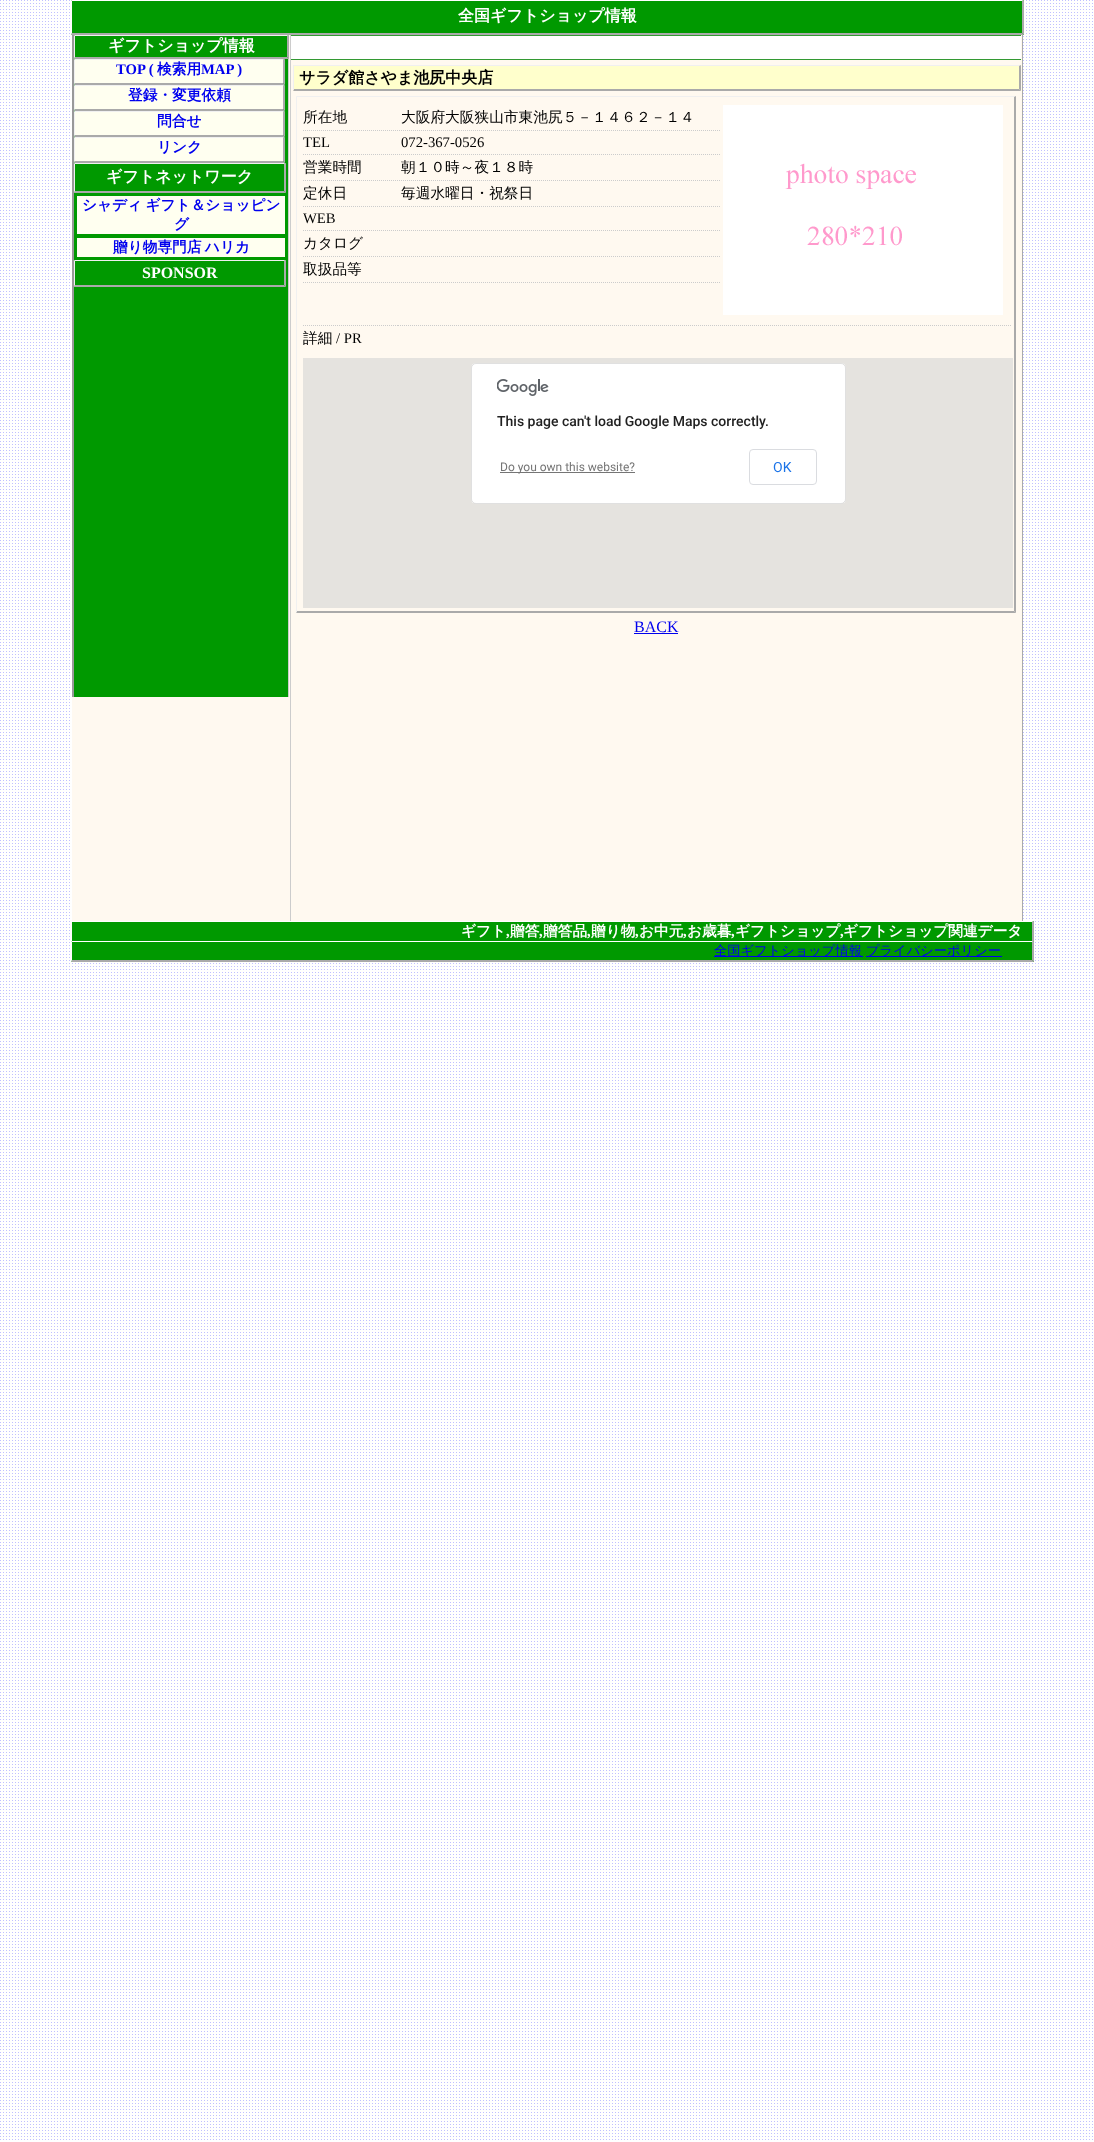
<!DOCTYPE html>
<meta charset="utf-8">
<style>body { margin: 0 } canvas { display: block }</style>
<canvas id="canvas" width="1094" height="2142"></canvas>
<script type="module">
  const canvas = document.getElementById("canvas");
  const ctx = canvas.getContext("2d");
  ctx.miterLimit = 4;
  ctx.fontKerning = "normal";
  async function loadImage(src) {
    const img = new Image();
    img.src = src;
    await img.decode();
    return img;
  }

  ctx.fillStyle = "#ffffff";
  ctx.fillRect(0, 0, 1094, 2142);
  ctx.drawImage(await loadImage("img1.png"), 0, 0, 1093, 2140);
  ctx.fillStyle = "#009900";
  ctx.fillRect(71, 0, 953, 35);
  ctx.fillStyle = "#ffffff";
  ctx.beginPath();
  ctx.moveTo(71, 0);
  ctx.lineTo(1024, 0);
  ctx.lineTo(1022, 1);
  ctx.lineTo(72, 1);
  ctx.closePath();
  ctx.fill();
  ctx.fillStyle = "#aaaaaa";
  ctx.beginPath();
  ctx.moveTo(1024, 0);
  ctx.lineTo(1024, 35);
  ctx.lineTo(1022, 33);
  ctx.lineTo(1022, 1);
  ctx.closePath();
  ctx.fill();
  ctx.beginPath();
  ctx.moveTo(1024, 35);
  ctx.lineTo(71, 35);
  ctx.lineTo(72, 33);
  ctx.lineTo(1022, 33);
  ctx.closePath();
  ctx.fill();
  ctx.fillStyle = "#ffffff";
  ctx.beginPath();
  ctx.moveTo(71, 35);
  ctx.lineTo(71, 0);
  ctx.lineTo(72, 1);
  ctx.lineTo(72, 33);
  ctx.closePath();
  ctx.fill();
  ctx.font = "bold 16px WenQuanYi Zen Hei";
  ctx.fillText("全国ギフトショップ情報", 458, 21);
  ctx.fillStyle = "#fff9f0";
  ctx.fillRect(72, 35, 950, 886);
  ctx.fillStyle = "#aaaaaa";
  ctx.fillRect(1022, 35, 1, 886);
  ctx.fillStyle = "#009900";
  ctx.fillRect(74, 35, 214, 662);
  ctx.fillStyle = "#cccccc";
  ctx.fillRect(288, 35, 1, 662);
  ctx.fillStyle = "#999999";
  ctx.fillRect(72, 35, 2, 662);
  ctx.fillStyle = "#f0f0f0";
  ctx.beginPath();
  ctx.moveTo(74, 35);
  ctx.lineTo(289, 35);
  ctx.lineTo(287, 36);
  ctx.lineTo(75, 36);
  ctx.closePath();
  ctx.fill();
  ctx.fillStyle = "#aaaaaa";
  ctx.beginPath();
  ctx.moveTo(289, 35);
  ctx.lineTo(289, 59);
  ctx.lineTo(287, 57);
  ctx.lineTo(287, 36);
  ctx.closePath();
  ctx.fill();
  ctx.beginPath();
  ctx.moveTo(289, 59);
  ctx.lineTo(74, 59);
  ctx.lineTo(75, 57);
  ctx.lineTo(287, 57);
  ctx.closePath();
  ctx.fill();
  ctx.fillStyle = "#f0f0f0";
  ctx.beginPath();
  ctx.moveTo(74, 59);
  ctx.lineTo(74, 35);
  ctx.lineTo(75, 36);
  ctx.lineTo(75, 57);
  ctx.closePath();
  ctx.fill();
  ctx.fillStyle = "#ffffff";
  ctx.fillText("ギフトショップ情報", 108, 51);
  ctx.fillStyle = "#f0f0f0";
  ctx.beginPath();
  ctx.moveTo(74, 59);
  ctx.lineTo(285, 59);
  ctx.lineTo(283, 60);
  ctx.lineTo(75, 60);
  ctx.closePath();
  ctx.fill();
  ctx.fillStyle = "#aaaaaa";
  ctx.beginPath();
  ctx.moveTo(285, 59);
  ctx.lineTo(285, 85);
  ctx.lineTo(283, 83);
  ctx.lineTo(283, 60);
  ctx.closePath();
  ctx.fill();
  ctx.beginPath();
  ctx.moveTo(285, 85);
  ctx.lineTo(74, 85);
  ctx.lineTo(75, 83);
  ctx.lineTo(283, 83);
  ctx.closePath();
  ctx.fill();
  ctx.fillStyle = "#f0f0f0";
  ctx.beginPath();
  ctx.moveTo(74, 85);
  ctx.lineTo(74, 59);
  ctx.lineTo(75, 60);
  ctx.lineTo(75, 83);
  ctx.closePath();
  ctx.fill();
  ctx.fillStyle = "#fffff0";
  ctx.fillRect(75, 60, 208, 23);
  ctx.font = "bold 14.7px Liberation Serif";
  ctx.fillStyle = "#0000ee";
  ctx.fillText("TOP (", 116, 74);
  ctx.font = "bold 14.7px WenQuanYi Zen Hei";
  ctx.fillText("検索用", 157, 74);
  ctx.font = "bold 14.7px Liberation Serif";
  ctx.fillText("MAP )", 201, 74);
  ctx.fillStyle = "#f0f0f0";
  ctx.beginPath();
  ctx.moveTo(74, 85);
  ctx.lineTo(285, 85);
  ctx.lineTo(283, 86);
  ctx.lineTo(75, 86);
  ctx.closePath();
  ctx.fill();
  ctx.fillStyle = "#aaaaaa";
  ctx.beginPath();
  ctx.moveTo(285, 85);
  ctx.lineTo(285, 111);
  ctx.lineTo(283, 109);
  ctx.lineTo(283, 86);
  ctx.closePath();
  ctx.fill();
  ctx.beginPath();
  ctx.moveTo(285, 111);
  ctx.lineTo(74, 111);
  ctx.lineTo(75, 109);
  ctx.lineTo(283, 109);
  ctx.closePath();
  ctx.fill();
  ctx.fillStyle = "#f0f0f0";
  ctx.beginPath();
  ctx.moveTo(74, 111);
  ctx.lineTo(74, 85);
  ctx.lineTo(75, 86);
  ctx.lineTo(75, 109);
  ctx.closePath();
  ctx.fill();
  ctx.fillStyle = "#fffff0";
  ctx.fillRect(75, 86, 208, 23);
  ctx.font = "bold 14.7px WenQuanYi Zen Hei";
  ctx.fillStyle = "#0000ee";
  ctx.fillText("登録・変更依頼", 128, 100);
  ctx.fillStyle = "#f0f0f0";
  ctx.beginPath();
  ctx.moveTo(74, 111);
  ctx.lineTo(285, 111);
  ctx.lineTo(283, 112);
  ctx.lineTo(75, 112);
  ctx.closePath();
  ctx.fill();
  ctx.fillStyle = "#aaaaaa";
  ctx.beginPath();
  ctx.moveTo(285, 111);
  ctx.lineTo(285, 137);
  ctx.lineTo(283, 135);
  ctx.lineTo(283, 112);
  ctx.closePath();
  ctx.fill();
  ctx.beginPath();
  ctx.moveTo(285, 137);
  ctx.lineTo(74, 137);
  ctx.lineTo(75, 135);
  ctx.lineTo(283, 135);
  ctx.closePath();
  ctx.fill();
  ctx.fillStyle = "#f0f0f0";
  ctx.beginPath();
  ctx.moveTo(74, 137);
  ctx.lineTo(74, 111);
  ctx.lineTo(75, 112);
  ctx.lineTo(75, 135);
  ctx.closePath();
  ctx.fill();
  ctx.fillStyle = "#fffff0";
  ctx.fillRect(75, 112, 208, 23);
  ctx.fillStyle = "#0000ee";
  ctx.fillText("問合せ", 157, 126);
  ctx.fillStyle = "#f0f0f0";
  ctx.beginPath();
  ctx.moveTo(74, 137);
  ctx.lineTo(285, 137);
  ctx.lineTo(283, 138);
  ctx.lineTo(75, 138);
  ctx.closePath();
  ctx.fill();
  ctx.fillStyle = "#aaaaaa";
  ctx.beginPath();
  ctx.moveTo(285, 137);
  ctx.lineTo(285, 163);
  ctx.lineTo(283, 161);
  ctx.lineTo(283, 138);
  ctx.closePath();
  ctx.fill();
  ctx.beginPath();
  ctx.moveTo(285, 163);
  ctx.lineTo(74, 163);
  ctx.lineTo(75, 161);
  ctx.lineTo(283, 161);
  ctx.closePath();
  ctx.fill();
  ctx.fillStyle = "#f0f0f0";
  ctx.beginPath();
  ctx.moveTo(74, 163);
  ctx.lineTo(74, 137);
  ctx.lineTo(75, 138);
  ctx.lineTo(75, 161);
  ctx.closePath();
  ctx.fill();
  ctx.fillStyle = "#fffff0";
  ctx.fillRect(75, 138, 208, 23);
  ctx.fillStyle = "#0000ee";
  ctx.fillText("リンク", 157, 152);
  ctx.fillStyle = "#f0f0f0";
  ctx.beginPath();
  ctx.moveTo(74, 163);
  ctx.lineTo(286, 163);
  ctx.lineTo(284, 164);
  ctx.lineTo(75, 164);
  ctx.closePath();
  ctx.fill();
  ctx.fillStyle = "#aaaaaa";
  ctx.beginPath();
  ctx.moveTo(286, 163);
  ctx.lineTo(286, 193);
  ctx.lineTo(284, 191);
  ctx.lineTo(284, 164);
  ctx.closePath();
  ctx.fill();
  ctx.beginPath();
  ctx.moveTo(286, 193);
  ctx.lineTo(74, 193);
  ctx.lineTo(75, 191);
  ctx.lineTo(284, 191);
  ctx.closePath();
  ctx.fill();
  ctx.fillStyle = "#f0f0f0";
  ctx.beginPath();
  ctx.moveTo(74, 193);
  ctx.lineTo(74, 163);
  ctx.lineTo(75, 164);
  ctx.lineTo(75, 191);
  ctx.closePath();
  ctx.fill();
  ctx.font = "bold 16px WenQuanYi Zen Hei";
  ctx.fillStyle = "#ffffff";
  ctx.fillText("ギフトネットワーク", 106, 182);
  ctx.fillStyle = "#fffff0";
  ctx.fillRect(77, 196, 208, 38);
  ctx.wordSpacing = "-1px";
  ctx.font = "bold 14.7px WenQuanYi Zen Hei";
  ctx.fillStyle = "#0000ee";
  ctx.fillText("シャディ ギフト＆ショッピン", 82, 210);
  ctx.wordSpacing = "0px";
  ctx.fillText("グ", 174, 229);
  ctx.fillStyle = "#fffff0";
  ctx.fillRect(77, 238, 208, 19);
  ctx.wordSpacing = "-1px";
  ctx.fillStyle = "#0000ee";
  ctx.fillText("贈り物専門店 ハリカ", 113, 252);
  ctx.fillStyle = "#f0f0f0";
  ctx.beginPath();
  ctx.moveTo(74, 260);
  ctx.lineTo(286, 260);
  ctx.lineTo(284, 261);
  ctx.lineTo(75, 261);
  ctx.closePath();
  ctx.fill();
  ctx.fillStyle = "#aaaaaa";
  ctx.beginPath();
  ctx.moveTo(286, 260);
  ctx.lineTo(286, 287);
  ctx.lineTo(284, 285);
  ctx.lineTo(284, 261);
  ctx.closePath();
  ctx.fill();
  ctx.beginPath();
  ctx.moveTo(286, 287);
  ctx.lineTo(74, 287);
  ctx.lineTo(75, 285);
  ctx.lineTo(284, 285);
  ctx.closePath();
  ctx.fill();
  ctx.fillStyle = "#f0f0f0";
  ctx.beginPath();
  ctx.moveTo(74, 287);
  ctx.lineTo(74, 260);
  ctx.lineTo(75, 261);
  ctx.lineTo(75, 285);
  ctx.closePath();
  ctx.fill();
  ctx.wordSpacing = "0px";
  ctx.font = "bold 16px Liberation Serif";
  ctx.fillStyle = "#ffffff";
  ctx.fillText("SPONSOR", 142, 278);
  ctx.fillStyle = "#cccccc";
  ctx.fillRect(290, 35, 1, 886);
  ctx.fillStyle = "#ffffff";
  ctx.fillRect(291, 36, 730, 23);
  ctx.fillStyle = "#339933";
  ctx.fillRect(291, 35, 730, 1);
  ctx.fillRect(291, 59, 730, 1);
  ctx.fillStyle = "#ffffcc";
  ctx.fillRect(293, 65, 728, 26);
  ctx.fillStyle = "#f0f0f0";
  ctx.beginPath();
  ctx.moveTo(293, 65);
  ctx.lineTo(1021, 65);
  ctx.lineTo(1019, 66);
  ctx.lineTo(294, 66);
  ctx.closePath();
  ctx.fill();
  ctx.fillStyle = "#aaaaaa";
  ctx.beginPath();
  ctx.moveTo(1021, 65);
  ctx.lineTo(1021, 91);
  ctx.lineTo(1019, 89);
  ctx.lineTo(1019, 66);
  ctx.closePath();
  ctx.fill();
  ctx.beginPath();
  ctx.moveTo(1021, 91);
  ctx.lineTo(293, 91);
  ctx.lineTo(294, 89);
  ctx.lineTo(1019, 89);
  ctx.closePath();
  ctx.fill();
  ctx.fillStyle = "#f0f0f0";
  ctx.beginPath();
  ctx.moveTo(293, 91);
  ctx.lineTo(293, 65);
  ctx.lineTo(294, 66);
  ctx.lineTo(294, 89);
  ctx.closePath();
  ctx.fill();
  ctx.font = "bold 16px WenQuanYi Zen Hei";
  ctx.fillStyle = "#000000";
  ctx.fillText("サラダ館さやま池尻中央店", 299, 83);
  ctx.fillStyle = "#f0f0f0";
  ctx.beginPath();
  ctx.moveTo(296, 96);
  ctx.lineTo(1016, 96);
  ctx.lineTo(1014, 97);
  ctx.lineTo(297, 97);
  ctx.closePath();
  ctx.fill();
  ctx.fillStyle = "#aaaaaa";
  ctx.beginPath();
  ctx.moveTo(1016, 96);
  ctx.lineTo(1016, 613);
  ctx.lineTo(1014, 611);
  ctx.lineTo(1014, 97);
  ctx.closePath();
  ctx.fill();
  ctx.beginPath();
  ctx.moveTo(1016, 613);
  ctx.lineTo(296, 613);
  ctx.lineTo(297, 611);
  ctx.lineTo(1014, 611);
  ctx.closePath();
  ctx.fill();
  ctx.fillStyle = "#f0f0f0";
  ctx.beginPath();
  ctx.moveTo(296, 613);
  ctx.lineTo(296, 96);
  ctx.lineTo(297, 97);
  ctx.lineTo(297, 611);
  ctx.closePath();
  ctx.fill();
  ctx.beginPath();
  ctx.moveTo(303, 130.5);
  ctx.lineTo(721, 130.5);
  ctx.strokeStyle = "#cccccc";
  ctx.setLineDash([1, 1]);
  ctx.stroke();
  ctx.font = "500 14.7px WenQuanYi Zen Hei";
  ctx.fillStyle = "#000000";
  ctx.fillText("所在地", 303, 122);
  ctx.fillText("大阪府大阪狭山市東池尻５－１４６２－１４", 401, 122);
  ctx.beginPath();
  ctx.moveTo(303, 154.5);
  ctx.lineTo(721, 154.5);
  ctx.stroke();
  ctx.font = "14.7px Liberation Serif";
  ctx.fillText("TEL", 303, 147);
  ctx.fillText("072-367-0526", 401, 147);
  ctx.beginPath();
  ctx.moveTo(303, 180.5);
  ctx.lineTo(721, 180.5);
  ctx.stroke();
  ctx.font = "500 14.7px WenQuanYi Zen Hei";
  ctx.fillText("営業時間", 303, 172);
  ctx.fillText("朝１０時～夜１８時", 401, 172);
  ctx.beginPath();
  ctx.moveTo(303, 206.5);
  ctx.lineTo(721, 206.5);
  ctx.stroke();
  ctx.fillText("定休日", 303, 198);
  ctx.fillText("毎週水曜日・祝祭日", 401, 198);
  ctx.beginPath();
  ctx.moveTo(303, 230.5);
  ctx.lineTo(721, 230.5);
  ctx.stroke();
  ctx.font = "14.7px Liberation Serif";
  ctx.fillText("WEB", 303, 223);
  ctx.beginPath();
  ctx.moveTo(303, 256.5);
  ctx.lineTo(721, 256.5);
  ctx.stroke();
  ctx.font = "500 14.7px WenQuanYi Zen Hei";
  ctx.fillText("カタログ", 303, 248);
  ctx.beginPath();
  ctx.moveTo(303, 282.5);
  ctx.lineTo(721, 282.5);
  ctx.stroke();
  ctx.fillText("取扱品等", 303, 274);
  ctx.drawImage(await loadImage("img2.png"), 723, 105, 280, 210);
  ctx.beginPath();
  ctx.moveTo(398, 325.5);
  ctx.lineTo(1011, 325.5);
  ctx.stroke();
  ctx.beginPath();
  ctx.moveTo(303, 325.5);
  ctx.lineTo(398, 325.5);
  ctx.stroke();
  ctx.fillText("詳細", 303, 343);
  ctx.font = "14.7px Liberation Serif";
  ctx.fillText("/ PR", 336, 343);
  ctx.fillStyle = "#e5e3df";
  ctx.fillRect(303, 358, 710, 250);
  ctx.fillStyle = "#ffffff";
  ctx.beginPath();
  ctx.roundRect(471, 363, 375, 141, 5);
  ctx.fill();
  ctx.beginPath();
  ctx.roundRect(471.5, 363.5, 374, 140, 4.5);
  ctx.strokeStyle = "rgba(0, 0, 0, 0.12)";
  ctx.setLineDash([]);
  ctx.stroke();
  ctx.drawImage(await loadImage("img3.png"), 497, 379, 52, 17);
  ctx.font = "500 14px Roboto";
  ctx.fillStyle = "#212121";
  ctx.fillText("This page can't load Google Maps correctly.", 497, 426);
  ctx.fillStyle = "#757575";
  ctx.fillRect(500, 472, 135, 1);
  ctx.font = "12px Roboto";
  ctx.fillText("Do you own this website?", 500, 471);
  ctx.beginPath();
  ctx.roundRect(749.5, 449.5, 67, 35, 3.5);
  ctx.strokeStyle = "#dadce0";
  ctx.stroke();
  ctx.font = "14px Roboto";
  ctx.fillStyle = "#1a73e8";
  ctx.fillText("OK", 773, 472);
  ctx.font = "16px Liberation Serif";
  ctx.fillStyle = "#0000ee";
  ctx.fillText("BACK", 634, 632);
  ctx.fillRect(634, 633, 44, 1);
  ctx.fillStyle = "#009900";
  ctx.fillRect(72, 921, 962, 20);
  ctx.fillStyle = "#ffffff";
  ctx.beginPath();
  ctx.moveTo(71, 921);
  ctx.lineTo(1034, 921);
  ctx.lineTo(1032, 922);
  ctx.lineTo(72, 922);
  ctx.closePath();
  ctx.fill();
  ctx.fillStyle = "#aaaaaa";
  ctx.beginPath();
  ctx.moveTo(1034, 921);
  ctx.lineTo(1034, 941);
  ctx.lineTo(1032, 941);
  ctx.lineTo(1032, 922);
  ctx.closePath();
  ctx.fill();
  ctx.font = "bold 14.7px WenQuanYi Zen Hei";
  ctx.fillStyle = "#ffffff";
  ctx.fillText("ギフト", 461, 936);
  ctx.font = "bold 14.7px Liberation Serif";
  ctx.fillText(",", 506, 936);
  ctx.font = "bold 14.7px WenQuanYi Zen Hei";
  ctx.fillText("贈答", 510, 936);
  ctx.font = "bold 14.7px Liberation Serif";
  ctx.fillText(",", 539, 936);
  ctx.font = "bold 14.7px WenQuanYi Zen Hei";
  ctx.fillText("贈答品", 543, 936);
  ctx.font = "bold 14.7px Liberation Serif";
  ctx.fillText(",", 587, 936);
  ctx.font = "bold 14.7px WenQuanYi Zen Hei";
  ctx.fillText("贈り物", 591, 936);
  ctx.font = "bold 14.7px Liberation Serif";
  ctx.fillText(",", 635, 936);
  ctx.font = "bold 14.7px WenQuanYi Zen Hei";
  ctx.fillText("お中元", 639, 936);
  ctx.font = "bold 14.7px Liberation Serif";
  ctx.fillText(",", 683, 936);
  ctx.font = "bold 14.7px WenQuanYi Zen Hei";
  ctx.fillText("お歳暮", 687, 936);
  ctx.font = "bold 14.7px Liberation Serif";
  ctx.fillText(",", 731, 936);
  ctx.font = "bold 14.7px WenQuanYi Zen Hei";
  ctx.fillText("ギフトショップ", 735, 936);
  ctx.font = "bold 14.7px Liberation Serif";
  ctx.fillText(",", 840, 936);
  ctx.font = "bold 14.7px WenQuanYi Zen Hei";
  ctx.fillText("ギフトショップ関連データ", 843, 936);
  ctx.fillStyle = "#009900";
  ctx.fillRect(71, 941, 963, 21);
  ctx.fillStyle = "#ffffff";
  ctx.beginPath();
  ctx.moveTo(71, 941);
  ctx.lineTo(1034, 941);
  ctx.lineTo(1032, 942);
  ctx.lineTo(72, 942);
  ctx.closePath();
  ctx.fill();
  ctx.fillStyle = "#aaaaaa";
  ctx.beginPath();
  ctx.moveTo(1034, 941);
  ctx.lineTo(1034, 962);
  ctx.lineTo(1032, 960);
  ctx.lineTo(1032, 942);
  ctx.closePath();
  ctx.fill();
  ctx.beginPath();
  ctx.moveTo(1034, 962);
  ctx.lineTo(71, 962);
  ctx.lineTo(72, 960);
  ctx.lineTo(1032, 960);
  ctx.closePath();
  ctx.fill();
  ctx.fillStyle = "#ffffff";
  ctx.beginPath();
  ctx.moveTo(71, 962);
  ctx.lineTo(71, 941);
  ctx.lineTo(72, 942);
  ctx.lineTo(72, 960);
  ctx.closePath();
  ctx.fill();
  ctx.fillStyle = "#0000ee";
  ctx.fillRect(714, 956, 149, 1);
  ctx.font = "500 13.25px WenQuanYi Zen Hei";
  ctx.fillText("全国ギフトショップ情報", 714, 955);
  ctx.fillRect(866, 956, 136, 1);
  ctx.fillText("プライバシーポリシー", 866, 955);
</script>
